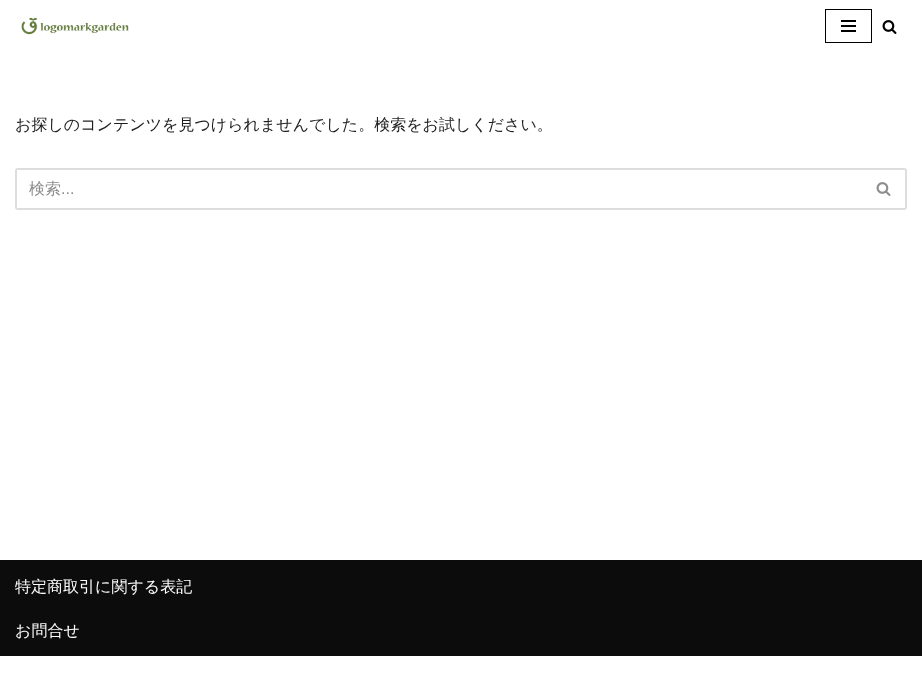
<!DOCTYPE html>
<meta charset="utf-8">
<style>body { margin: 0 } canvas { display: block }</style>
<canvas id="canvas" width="922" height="698"></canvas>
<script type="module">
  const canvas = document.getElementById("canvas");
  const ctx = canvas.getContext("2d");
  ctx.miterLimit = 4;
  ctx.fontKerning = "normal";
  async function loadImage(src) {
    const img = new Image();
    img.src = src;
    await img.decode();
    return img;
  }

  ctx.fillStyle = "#ffffff";
  ctx.fillRect(0, 0, 922, 698);
  ctx.drawImage(await loadImage("img1.png"), 21, 17, 108, 18);
  ctx.strokeStyle = "#000000";
  ctx.strokeRect(825.5, 9.5, 46, 33);
  ctx.fillStyle = "#000000";
  ctx.fillRect(841, 20, 15, 2);
  ctx.fillRect(841, 25, 15, 2);
  ctx.fillRect(841, 30, 15, 2);
  ctx.drawImage(await loadImage("img2.png"), 882, 20, 15, 14);
  ctx.font = "500 16px WenQuanYi Zen Hei";
  ctx.fillStyle = "#1e1d1d";
  ctx.fillText("お探しのコンテンツを見つけられませんでした。検索をお試しください。", 15, 130);
  ctx.fillStyle = "#dddddd";
  ctx.beginPath();
  ctx.moveTo(18, 168);
  ctx.lineTo(862, 168);
  ctx.lineTo(862, 210);
  ctx.lineTo(18, 210);
  ctx.bezierCurveTo(16, 210, 15, 209, 15, 207);
  ctx.lineTo(15, 171);
  ctx.bezierCurveTo(15, 169, 16, 168, 18, 168);
  ctx.closePath();
  ctx.moveTo(18, 170);
  ctx.lineTo(862, 170);
  ctx.lineTo(862, 208);
  ctx.lineTo(18, 208);
  ctx.bezierCurveTo(17, 208, 17, 208, 17, 207);
  ctx.lineTo(17, 171);
  ctx.bezierCurveTo(17, 170, 17, 170, 18, 170);
  ctx.closePath();
  ctx.fill("evenodd");
  ctx.fillStyle = "#8f8e8e";
  ctx.fillText("検索", 29, 194);
  ctx.font = "16px Liberation Sans";
  ctx.fillText("...", 61, 194);
  ctx.fillStyle = "#dddddd";
  ctx.beginPath();
  ctx.moveTo(862, 168);
  ctx.lineTo(904, 168);
  ctx.bezierCurveTo(906, 168, 907, 169, 907, 171);
  ctx.lineTo(907, 207);
  ctx.bezierCurveTo(907, 209, 906, 210, 904, 210);
  ctx.lineTo(862, 210);
  ctx.closePath();
  ctx.moveTo(862, 170);
  ctx.lineTo(904, 170);
  ctx.bezierCurveTo(905, 170, 905, 170, 905, 171);
  ctx.lineTo(905, 207);
  ctx.bezierCurveTo(905, 208, 905, 208, 904, 208);
  ctx.lineTo(862, 208);
  ctx.closePath();
  ctx.fill("evenodd");
  ctx.drawImage(await loadImage("img3.png"), 876, 182, 15, 14);
  ctx.fillStyle = "#0c0c0c";
  ctx.fillRect(0, 560, 922, 96);
  ctx.font = "500 16px WenQuanYi Zen Hei";
  ctx.fillStyle = "#fdfdfd";
  ctx.fillText("特定商取引に関する表記", 15, 592);
  ctx.fillText("お問合せ", 15, 636);
</script>
